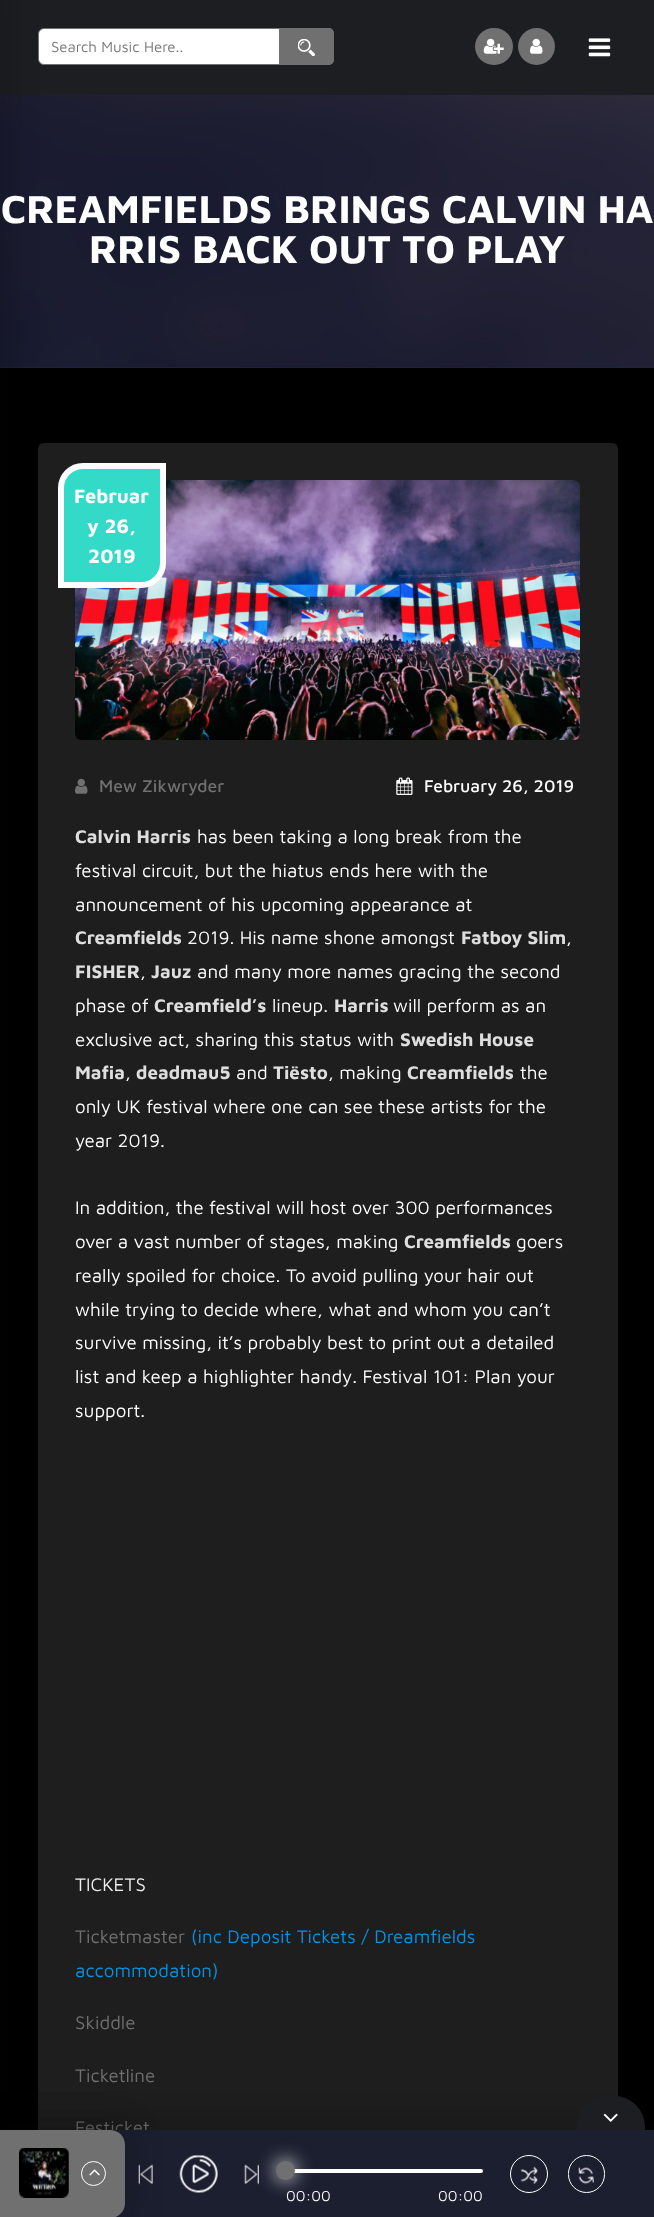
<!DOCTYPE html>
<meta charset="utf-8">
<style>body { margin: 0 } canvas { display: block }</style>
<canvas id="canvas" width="654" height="2217"></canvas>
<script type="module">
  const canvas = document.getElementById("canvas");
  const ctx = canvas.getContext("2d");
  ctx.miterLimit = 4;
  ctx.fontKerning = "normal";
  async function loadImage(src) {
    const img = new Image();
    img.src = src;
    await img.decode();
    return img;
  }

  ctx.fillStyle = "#000000";
  ctx.fillRect(0, 0, 654, 2217);
  ctx.fillStyle = "#1d1e22";
  ctx.fillRect(0, 0, 654, 95);
  ctx.fillStyle = "#ffffff";
  ctx.beginPath();
  ctx.roundRect(38.5, 28.5, 295, 36, 5.5);
  ctx.fill();
  ctx.strokeStyle = "#707070";
  ctx.stroke();
  ctx.fillStyle = "#22273e";
  ctx.fillRect(0, 367, 654, 1);
  ctx.drawImage(await loadImage("img5.png"), 0, 95, 654, 273);
  ctx.fillStyle = "#1e1e1e";
  ctx.beginPath();
  ctx.roundRect(38, 443, 580, 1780, 6);
  ctx.fill();
  ctx.fillStyle = "rgba(4, 4, 4, 0.2)";
  ctx.filter = "blur(15px)";
  ctx.beginPath();
  ctx.rect(-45, -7, 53, 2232);
  ctx.fill();
  ctx.filter = "none";
  ctx.drawImage(await loadImage("img1.png"), 588, 38, 23, 19);
  ctx.font = "15px Maven Pro";
  ctx.fillStyle = "#777777";
  ctx.fillText("Search Music Here..", 51, 52);
  ctx.fillStyle = "#707070";
  ctx.beginPath();
  ctx.roundRect(279, 28, 55, 37, [0, 5, 5, 0]);
  ctx.fill();
  ctx.drawImage(await loadImage("img2.png"), 298, 39, 17, 17);
  ctx.beginPath();
  ctx.roundRect(475, 28, 38, 37, 18.5);
  ctx.fill();
  ctx.drawImage(await loadImage("img3.png"), 483, 38, 21, 16);
  ctx.beginPath();
  ctx.arc(536.5, 46.5, 18.5, 0, Math.PI * 2);
  ctx.fill();
  ctx.drawImage(await loadImage("img4.png"), 530, 38, 13, 16);
  ctx.font = "bold 40px Maven Pro";
  ctx.fillStyle = "#ffffff";
  ctx.fillText("CREAMFIELDS BRINGS CALVIN HA", 1, 223);
  ctx.fillText("RRIS BACK OUT TO PLAY", 89, 263);
  ctx.drawImage(await loadImage("img6.png"), 75, 480, 505, 260);
  ctx.fillStyle = "#34dac8";
  ctx.beginPath();
  ctx.roundRect(61, 466, 102, 119, [22, 0, 22, 0]);
  ctx.fill();
  ctx.strokeStyle = "#ffffff";
  ctx.lineWidth = 6;
  ctx.stroke();
  ctx.font = "bold 20px Maven Pro";
  ctx.fillStyle = "#ffffff";
  ctx.fillText("Februar", 74, 503);
  ctx.fillText("y 26,", 87, 533);
  ctx.fillText("2019", 88, 563);
  ctx.drawImage(await loadImage("img7.png"), 75, 778, 13, 16);
  ctx.font = "500 17.5px Maven Pro";
  ctx.fillStyle = "#707070";
  ctx.fillText("Mew Zikwryder", 99, 792);
  ctx.drawImage(await loadImage("img8.png"), 396, 777, 17, 18);
  ctx.fillStyle = "#ffffff";
  ctx.fillText("February 26, 2019", 424, 792);
  ctx.font = "bold 18.75px Maven Pro";
  ctx.fillStyle = "#dedede";
  ctx.fillText("Calvin Harris", 75, 843);
  ctx.font = "18.75px Maven Pro";
  ctx.fillStyle = "#ffffff";
  ctx.fillText("has been taking a long break from the", 197, 843);
  ctx.fillText("festival circuit, but the hiatus ends here with the", 75, 877);
  ctx.fillText("announcement of his upcoming appearance at", 75, 911);
  ctx.font = "bold 18.75px Maven Pro";
  ctx.fillStyle = "#dedede";
  ctx.fillText("Creamfields", 75, 944);
  ctx.font = "18.75px Maven Pro";
  ctx.fillStyle = "#ffffff";
  ctx.fillText("2019. His name shone amongst", 187, 944);
  ctx.font = "bold 18.75px Maven Pro";
  ctx.fillStyle = "#dedede";
  ctx.fillText("Fatboy Slim", 461, 944);
  ctx.font = "18.75px Maven Pro";
  ctx.fillStyle = "#ffffff";
  ctx.fillText(",", 566, 944);
  ctx.font = "bold 18.75px Maven Pro";
  ctx.fillStyle = "#dedede";
  ctx.fillText("FISHER", 75, 978);
  ctx.font = "18.75px Maven Pro";
  ctx.fillStyle = "#ffffff";
  ctx.fillText(",", 140, 978);
  ctx.font = "bold 18.75px Maven Pro";
  ctx.fillStyle = "#dedede";
  ctx.fillText("Jauz", 151, 978);
  ctx.font = "18.75px Maven Pro";
  ctx.fillStyle = "#ffffff";
  ctx.fillText("and many more names gracing the second", 197, 978);
  ctx.fillText("phase of", 75, 1012);
  ctx.font = "bold 18.75px Maven Pro";
  ctx.fillStyle = "#dedede";
  ctx.fillText("Creamfield’s", 154, 1012);
  ctx.font = "18.75px Maven Pro";
  ctx.fillStyle = "#ffffff";
  ctx.fillText("lineup.", 272, 1012);
  ctx.font = "bold 18.75px Maven Pro";
  ctx.fillStyle = "#dedede";
  ctx.fillText("Harris", 334, 1012);
  ctx.font = "18.75px Maven Pro";
  ctx.fillStyle = "#ffffff";
  ctx.fillText("will perform as an", 393, 1012);
  ctx.fillText("exclusive act, sharing this status with", 75, 1046);
  ctx.font = "bold 18.75px Maven Pro";
  ctx.fillStyle = "#dedede";
  ctx.fillText("Swedish House", 400, 1046);
  ctx.fillText("Mafia", 75, 1079);
  ctx.font = "18.75px Maven Pro";
  ctx.fillStyle = "#ffffff";
  ctx.fillText(",", 125, 1079);
  ctx.font = "bold 18.75px Maven Pro";
  ctx.fillStyle = "#dedede";
  ctx.fillText("deadmau5", 136, 1079);
  ctx.font = "18.75px Maven Pro";
  ctx.fillStyle = "#ffffff";
  ctx.fillText("and", 236, 1079);
  ctx.font = "bold 18.75px Maven Pro";
  ctx.fillStyle = "#dedede";
  ctx.fillText("Tiësto", 273, 1079);
  ctx.font = "18.75px Maven Pro";
  ctx.fillStyle = "#ffffff";
  ctx.fillText(", making", 328, 1079);
  ctx.font = "bold 18.75px Maven Pro";
  ctx.fillStyle = "#dedede";
  ctx.fillText("Creamfields", 407, 1079);
  ctx.font = "18.75px Maven Pro";
  ctx.fillStyle = "#ffffff";
  ctx.fillText("the", 520, 1079);
  ctx.fillText("only UK festival where one can see these artists for the", 75, 1113);
  ctx.fillText("year 2019.", 75, 1147);
  ctx.fillText("In addition, the festival will host over 300 performances", 75, 1214);
  ctx.fillText("over a vast number of stages, making", 75, 1248);
  ctx.font = "bold 18.75px Maven Pro";
  ctx.fillStyle = "#dedede";
  ctx.fillText("Creamfields", 404, 1248);
  ctx.font = "18.75px Maven Pro";
  ctx.fillStyle = "#ffffff";
  ctx.fillText("goers", 516, 1248);
  ctx.fillText("really spoiled for choice. To avoid pulling your hair out", 75, 1282);
  ctx.fillText("while trying to decide where, what and whom you can’t", 75, 1316);
  ctx.fillText("survive missing, it’s probably best to print out a detailed", 75, 1349);
  ctx.fillText("list and keep a highlighter handy. Festival 101: Plan your", 75, 1383);
  ctx.fillText("support.", 75, 1417);
  ctx.fillStyle = "#eeeeee";
  ctx.fillText("TICKETS", 75, 1891);
  ctx.fillStyle = "#707070";
  ctx.fillText("Ticketmaster", 75, 1943);
  ctx.fillStyle = "#0693e3";
  ctx.fillText("(inc Deposit Tickets / Dreamfields", 191, 1943);
  ctx.fillText("accommodation)", 75, 1977);
  ctx.fillStyle = "#707070";
  ctx.fillText("Skiddle", 75, 2029);
  ctx.fillText("Ticketline", 75, 2082);
  ctx.fillText("Festicket", 75, 2134);
  ctx.fillStyle = "rgba(4, 4, 4, 0.2)";
  ctx.filter = "blur(15px)";
  ctx.beginPath();
  ctx.rect(-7, 2123, 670, 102);
  ctx.fill();
  ctx.filter = "none";
  ctx.fillStyle = "#1d1e22";
  ctx.beginPath();
  ctx.roundRect(576, 2096, 69, 34, [31, 31, 0, 0]);
  ctx.fill();
  ctx.drawImage(await loadImage("img9.png"), 603, 2113, 15, 9);
  ctx.fillStyle = "#1c1f30";
  ctx.fillRect(110, 2130, 544, 87);
  ctx.drawImage(await loadImage("img12.png"), 138, 2164, 15, 21);
  ctx.fillStyle = "rgba(4, 4, 4, 0.2)";
  ctx.filter = "blur(15px)";
  ctx.beginPath();
  ctx.roundRect(-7, 2123, 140, 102, 23);
  ctx.fill();
  ctx.filter = "none";
  ctx.fillStyle = "#707070";
  ctx.beginPath();
  ctx.moveTo(0, 2130);
  ctx.lineTo(110, 2130);
  ctx.bezierCurveTo(118.5, 2130, 125, 2136.5, 125, 2145);
  ctx.lineTo(125, 2203);
  ctx.bezierCurveTo(125, 2211.5, 118.5, 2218, 110, 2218);
  ctx.lineTo(0, 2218);
  ctx.closePath();
  ctx.fill();
  ctx.drawImage(await loadImage("img10.png"), 19, 2148, 50, 50);
  ctx.beginPath();
  ctx.arc(93.5, 2173.5, 12, 0, Math.PI * 2);
  ctx.lineWidth = 1;
  ctx.stroke();
  ctx.drawImage(await loadImage("img11.png"), 89, 2169, 11, 7);
  ctx.drawImage(await loadImage("img13.png"), 179, 2155, 39, 38);
  ctx.drawImage(await loadImage("img14.png"), 244, 2164, 15, 21);
  ctx.drawImage(await loadImage("img15.png"), 520, 2166, 18, 18);
  ctx.beginPath();
  ctx.arc(529, 2174, 18.5, 0, Math.PI * 2);
  ctx.stroke();
  ctx.drawImage(await loadImage("img16.png"), 578, 2167, 16, 17);
  ctx.beginPath();
  ctx.roundRect(568.5, 2155.5, 36, 37, 18);
  ctx.stroke();
  ctx.fillStyle = "#ffffff";
  ctx.beginPath();
  ctx.roundRect(286, 2169, 197, 4, 2);
  ctx.fill();
  ctx.filter = "blur(9.5px)";
  ctx.beginPath();
  ctx.roundRect(276, 2161, 19, 19, 9.5);
  ctx.fill();
  ctx.filter = "none";
  ctx.fillStyle = "#707070";
  ctx.beginPath();
  ctx.arc(285.5, 2170.5, 9.5, 0, Math.PI * 2);
  ctx.fill();
  ctx.font = "15px Maven Pro";
  ctx.fillStyle = "#ffffff";
  ctx.fillText("00:00", 286, 2201);
  ctx.fillText("00:00", 438, 2201);
</script>
